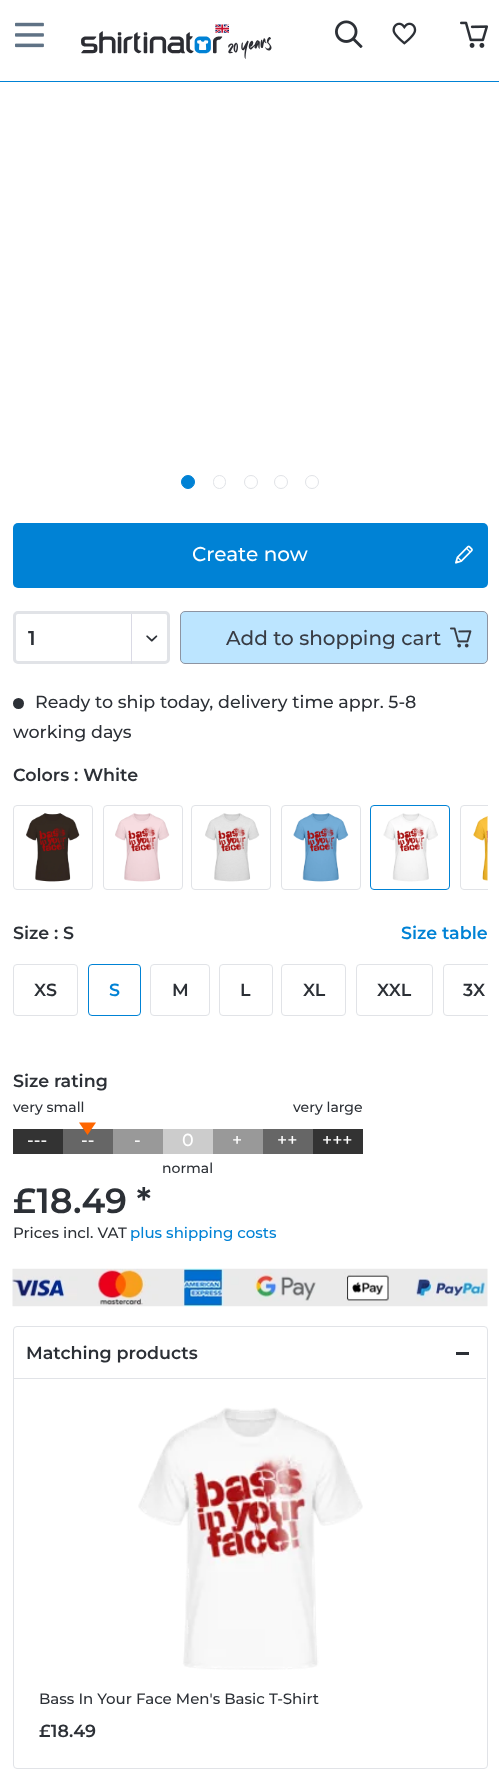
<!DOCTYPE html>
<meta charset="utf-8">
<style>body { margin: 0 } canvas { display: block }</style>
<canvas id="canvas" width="499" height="1789"></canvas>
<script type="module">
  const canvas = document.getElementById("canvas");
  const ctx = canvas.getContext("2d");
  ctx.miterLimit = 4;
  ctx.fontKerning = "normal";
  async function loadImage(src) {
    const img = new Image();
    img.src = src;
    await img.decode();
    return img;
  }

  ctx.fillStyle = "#ffffff";
  ctx.fillRect(0, 0, 499, 1789);
  ctx.fillStyle = "#0082d5";
  ctx.fillRect(0, 81, 499, 1);
  ctx.drawImage(await loadImage("img1.png"), 15, 22, 29, 26);
  ctx.drawImage(await loadImage("img2.png"), 81, 24, 191, 35);
  ctx.drawImage(await loadImage("img3.png"), 335, 20, 28, 28);
  ctx.drawImage(await loadImage("img4.png"), 392, 22, 25, 23);
  ctx.drawImage(await loadImage("img5.png"), 460, 21, 28, 27);
  ctx.beginPath();
  ctx.arc(188, 482, 6.5, 0, Math.PI * 2);
  ctx.fill();
  ctx.strokeStyle = "#0082d5";
  ctx.stroke();
  ctx.beginPath();
  ctx.roundRect(213.5, 475.5, 12, 13, 6);
  ctx.strokeStyle = "#e1e3e7";
  ctx.stroke();
  ctx.beginPath();
  ctx.arc(251, 482, 6.5, 0, Math.PI * 2);
  ctx.stroke();
  ctx.beginPath();
  ctx.arc(281, 482, 6.5, 0, Math.PI * 2);
  ctx.stroke();
  ctx.beginPath();
  ctx.arc(312, 482, 6.5, 0, Math.PI * 2);
  ctx.stroke();
  ctx.beginPath();
  ctx.roundRect(13, 523, 475, 65, 5);
  ctx.fill();
  ctx.font = "500 20px Montserrat";
  ctx.fillStyle = "#ffffff";
  ctx.fillText("Create now", 192, 561);
  ctx.drawImage(await loadImage("img6.png"), 455, 545, 18, 19);
  ctx.beginPath();
  ctx.roundRect(14.5, 612.5, 154, 50, 3.5);
  ctx.lineWidth = 3;
  ctx.stroke();
  ctx.save();
  ctx.beginPath();
  ctx.rect(28, 614, 90, 50);
  ctx.clip();
  ctx.font = "600 20px Montserrat";
  ctx.fillStyle = "#2c3036";
  ctx.fillText("1", 28, 645);
  ctx.restore();
  ctx.fillStyle = "#dadae5";
  ctx.fillRect(131, 614, 1, 50);
  ctx.drawImage(await loadImage("img7.png"), 146, 635, 12, 7);
  ctx.fillStyle = "#bce5ff";
  ctx.beginPath();
  ctx.roundRect(180.5, 611.5, 307, 52, 4.5);
  ctx.fill();
  ctx.strokeStyle = "#8d94a2";
  ctx.lineWidth = 1;
  ctx.stroke();
  ctx.fillStyle = "#383c44";
  ctx.fillText("Add to shopping cart", 226, 645);
  ctx.drawImage(await loadImage("img8.png"), 450, 627, 22, 21);
  ctx.fillStyle = "#2c3036";
  ctx.beginPath();
  ctx.arc(18.5, 703.5, 5.5, 0, Math.PI * 2);
  ctx.fill();
  ctx.font = "500 17.5px Montserrat";
  ctx.fillText("Ready to ship today, delivery time appr. 5-8", 35, 708);
  ctx.fillText("working days", 13, 738);
  ctx.font = "600 17.5px Montserrat";
  ctx.fillText("Colors : White", 13, 781);
  ctx.beginPath();
  ctx.roundRect(13.5, 805.5, 79, 84, 3.5);
  ctx.strokeStyle = "#e1e3e7";
  ctx.stroke();
  ctx.drawImage(await loadImage("img9.png"), 26, 813, 54, 69);
  ctx.beginPath();
  ctx.roundRect(103.5, 805.5, 79, 84, 3.5);
  ctx.stroke();
  ctx.drawImage(await loadImage("img10.png"), 115, 813, 55, 69);
  ctx.beginPath();
  ctx.roundRect(191.5, 805.5, 79, 84, 3.5);
  ctx.stroke();
  ctx.drawImage(await loadImage("img11.png"), 205, 813, 55, 69);
  ctx.beginPath();
  ctx.roundRect(281.5, 805.5, 79, 84, 3.5);
  ctx.stroke();
  ctx.drawImage(await loadImage("img12.png"), 293, 813, 56, 69);
  ctx.beginPath();
  ctx.roundRect(370.5, 805.5, 79, 84, 3.5);
  ctx.strokeStyle = "#0082d5";
  ctx.stroke();
  ctx.drawImage(await loadImage("img13.png"), 383, 813, 55, 69);
  ctx.save();
  ctx.beginPath();
  ctx.rect(13, 796, 475, 110);
  ctx.clip();
  ctx.beginPath();
  ctx.roundRect(460.5, 805.5, 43, 84, 3.5);
  ctx.strokeStyle = "#e1e3e7";
  ctx.stroke();
  ctx.restore();
  ctx.drawImage(await loadImage("img14.png"), 473, 816, 15, 65);
  ctx.fillText("Size : S", 13, 939);
  ctx.fillStyle = "#0082d5";
  ctx.fillText("Size table", 401, 939);
  ctx.beginPath();
  ctx.roundRect(13.5, 964.5, 64, 51, 3.5);
  ctx.strokeStyle = "#e1e3e7";
  ctx.stroke();
  ctx.fillStyle = "#2c3036";
  ctx.fillText("XS", 34, 996);
  ctx.beginPath();
  ctx.roundRect(88.5, 964.5, 52, 51, 3.5);
  ctx.strokeStyle = "#0082d5";
  ctx.stroke();
  ctx.fillStyle = "#0082d5";
  ctx.fillText("S", 109, 996);
  ctx.beginPath();
  ctx.roundRect(150.5, 964.5, 59, 51, 3.5);
  ctx.strokeStyle = "#e1e3e7";
  ctx.stroke();
  ctx.fillStyle = "#2c3036";
  ctx.fillText("M", 172, 996);
  ctx.beginPath();
  ctx.roundRect(219.5, 964.5, 53, 51, 3.5);
  ctx.stroke();
  ctx.fillText("L", 240, 996);
  ctx.beginPath();
  ctx.roundRect(281.5, 964.5, 64, 51, 3.5);
  ctx.stroke();
  ctx.fillText("XL", 303, 996);
  ctx.beginPath();
  ctx.roundRect(356.5, 964.5, 76, 51, 3.5);
  ctx.stroke();
  ctx.fillText("XXL", 377, 996);
  ctx.save();
  ctx.beginPath();
  ctx.rect(13, 955, 475, 78);
  ctx.clip();
  ctx.beginPath();
  ctx.roundRect(443.5, 964.5, 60, 51, 3.5);
  ctx.stroke();
  ctx.restore();
  ctx.fillText("3X", 463, 996);
  ctx.fillText("Size rating", 13, 1087);
  ctx.font = "500 14px Montserrat";
  ctx.fillText("very small", 13, 1112);
  ctx.fillText("very large", 293, 1112);
  ctx.fillStyle = "#666666";
  ctx.fillRect(63, 1129, 50, 25);
  ctx.fillStyle = "#ff6600";
  ctx.beginPath();
  ctx.moveTo(79, 1122.5);
  ctx.lineTo(96, 1122.5);
  ctx.lineTo(87.5, 1135);
  ctx.closePath();
  ctx.fill();
  ctx.fillStyle = "#333333";
  ctx.fillRect(13, 1129, 50, 25);
  ctx.font = "500 17.5px Montserrat";
  ctx.fillStyle = "#ffffff";
  ctx.fillText("---", 27, 1146);
  ctx.fillText("--", 81, 1146);
  ctx.fillStyle = "#999999";
  ctx.fillRect(113, 1129, 50, 25);
  ctx.fillStyle = "#ffffff";
  ctx.fillText("-", 134, 1146);
  ctx.fillStyle = "#cccccc";
  ctx.fillRect(163, 1129, 50, 25);
  ctx.fillStyle = "#ffffff";
  ctx.fillText("0", 182, 1146);
  ctx.fillStyle = "#999999";
  ctx.fillRect(213, 1129, 50, 25);
  ctx.fillStyle = "#ffffff";
  ctx.fillText("+", 232, 1146);
  ctx.fillStyle = "#666666";
  ctx.fillRect(263, 1129, 50, 25);
  ctx.fillStyle = "#ffffff";
  ctx.fillText("++", 277, 1146);
  ctx.fillStyle = "#333333";
  ctx.fillRect(313, 1129, 50, 25);
  ctx.fillStyle = "#ffffff";
  ctx.fillText("+++", 322, 1146);
  ctx.font = "500 14px Montserrat";
  ctx.fillStyle = "#2c3036";
  ctx.fillText("normal", 162, 1173);
  ctx.font = "600 35px Montserrat";
  ctx.fillText("£18.49 *", 13, 1213);
  ctx.font = "500 15px Montserrat";
  ctx.fillText("Prices incl. VAT", 13, 1238);
  ctx.fillStyle = "#0082d5";
  ctx.fillText("plus shipping costs", 130, 1238);
  ctx.drawImage(await loadImage("img15.png"), 12, 1268, 476, 39);
  ctx.beginPath();
  ctx.roundRect(13.5, 1326.5, 474, 442, 3.5);
  ctx.stroke();
  ctx.fillStyle = "#e1e3e7";
  ctx.fillRect(14, 1378, 472, 1);
  ctx.font = "600 17.5px Montserrat";
  ctx.fillStyle = "#2c3036";
  ctx.fillText("Matching products", 26, 1359);
  ctx.fillRect(456, 1352, 13, 3);
  ctx.drawImage(await loadImage("img16.png"), 138, 1407, 225, 263);
  ctx.font = "500 15px Montserrat";
  ctx.fillText("Bass In Your Face Men's Basic T-Shirt", 39, 1704);
  ctx.font = "600 17.5px Montserrat";
  ctx.fillText("£18.49", 39, 1737);
</script>
